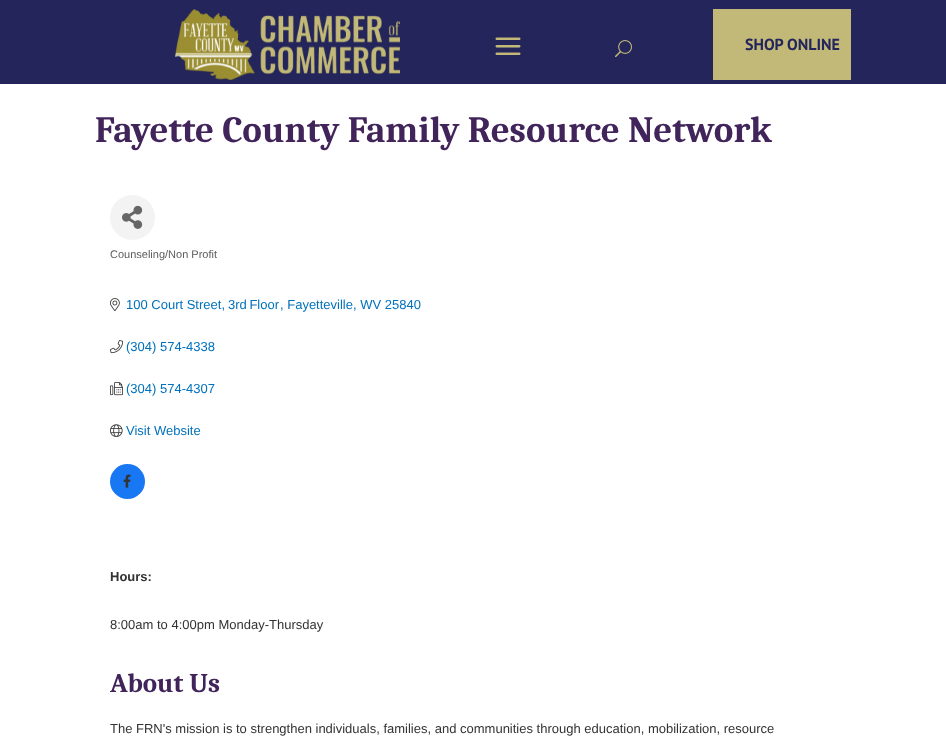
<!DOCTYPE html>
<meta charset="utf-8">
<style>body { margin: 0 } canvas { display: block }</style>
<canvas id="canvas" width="946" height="745"></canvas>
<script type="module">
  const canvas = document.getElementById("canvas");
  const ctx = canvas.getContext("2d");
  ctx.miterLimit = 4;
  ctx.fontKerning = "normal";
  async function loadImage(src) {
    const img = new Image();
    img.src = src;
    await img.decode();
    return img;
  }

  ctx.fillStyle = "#ffffff";
  ctx.fillRect(0, 0, 946, 745);
  ctx.fillStyle = "#24255b";
  ctx.fillRect(0, 0, 946, 84);
  ctx.drawImage(await loadImage("img1.png"), 175, 9, 225, 71);
  ctx.drawImage(await loadImage("img2.png"), 495, 37, 26, 18);
  ctx.drawImage(await loadImage("img3.png"), 615, 40, 17, 18);
  ctx.fillStyle = "#c2b979";
  ctx.fillRect(713, 9, 138, 71);
  ctx.font = "bold 16px PT Sans";
  ctx.fillStyle = "#24255b";
  ctx.fillText("SHOP ONLINE", 745, 50);
  ctx.font = "bold 37px Caladea";
  ctx.fillStyle = "#41245a";
  ctx.fillText("Fayette County Family Resource Network", 95, 142);
  ctx.fillStyle = "#f3f3f3";
  ctx.beginPath();
  ctx.arc(132.5, 217.5, 22.5, 0, Math.PI * 2);
  ctx.fill();
  ctx.drawImage(await loadImage("img4.png"), 122, 205, 21, 24);
  ctx.font = "11px Liberation Sans";
  ctx.fillStyle = "#5c5c5c";
  ctx.fillText("Counseling/Non Profit", 110, 258);
  ctx.drawImage(await loadImage("img5.png"), 110, 298, 10, 14);
  ctx.font = "13px Liberation Sans";
  ctx.fillStyle = "#0071bc";
  ctx.fillText("100 Court Street,", 126, 309);
  ctx.wordSpacing = "-1px";
  ctx.fillText("3rd Floor", 228, 309);
  ctx.wordSpacing = "0px";
  ctx.fillText(", Fayetteville, WV 25840", 280, 309);
  ctx.drawImage(await loadImage("img6.png"), 110, 340, 13, 14);
  ctx.fillText("(304) 574-4338", 126, 351);
  ctx.drawImage(await loadImage("img7.png"), 110, 382, 13, 14);
  ctx.fillText("(304) 574-4307", 126, 393);
  ctx.drawImage(await loadImage("img8.png"), 110, 424, 13, 13);
  ctx.fillText("Visit Website", 126, 435);
  ctx.fillStyle = "#1877f2";
  ctx.beginPath();
  ctx.arc(127.5, 481.5, 17.5, 0, Math.PI * 2);
  ctx.fill();
  ctx.drawImage(await loadImage("img9.png"), 123, 474, 8, 14);
  ctx.font = "bold 13px Liberation Sans";
  ctx.fillStyle = "#333333";
  ctx.fillText("Hours:", 110, 581);
  ctx.font = "13px Liberation Sans";
  ctx.fillText("8:00am to 4:00pm Monday-Thursday", 110, 629);
  ctx.font = "bold 27px Caladea";
  ctx.fillStyle = "#41245a";
  ctx.fillText("About Us", 110, 692);
  ctx.font = "13px Liberation Sans";
  ctx.fillStyle = "#333333";
  ctx.fillText("The FRN's mission is to strengthen individuals, families, and communities through education, mobilization, resource", 110, 733);
</script>
